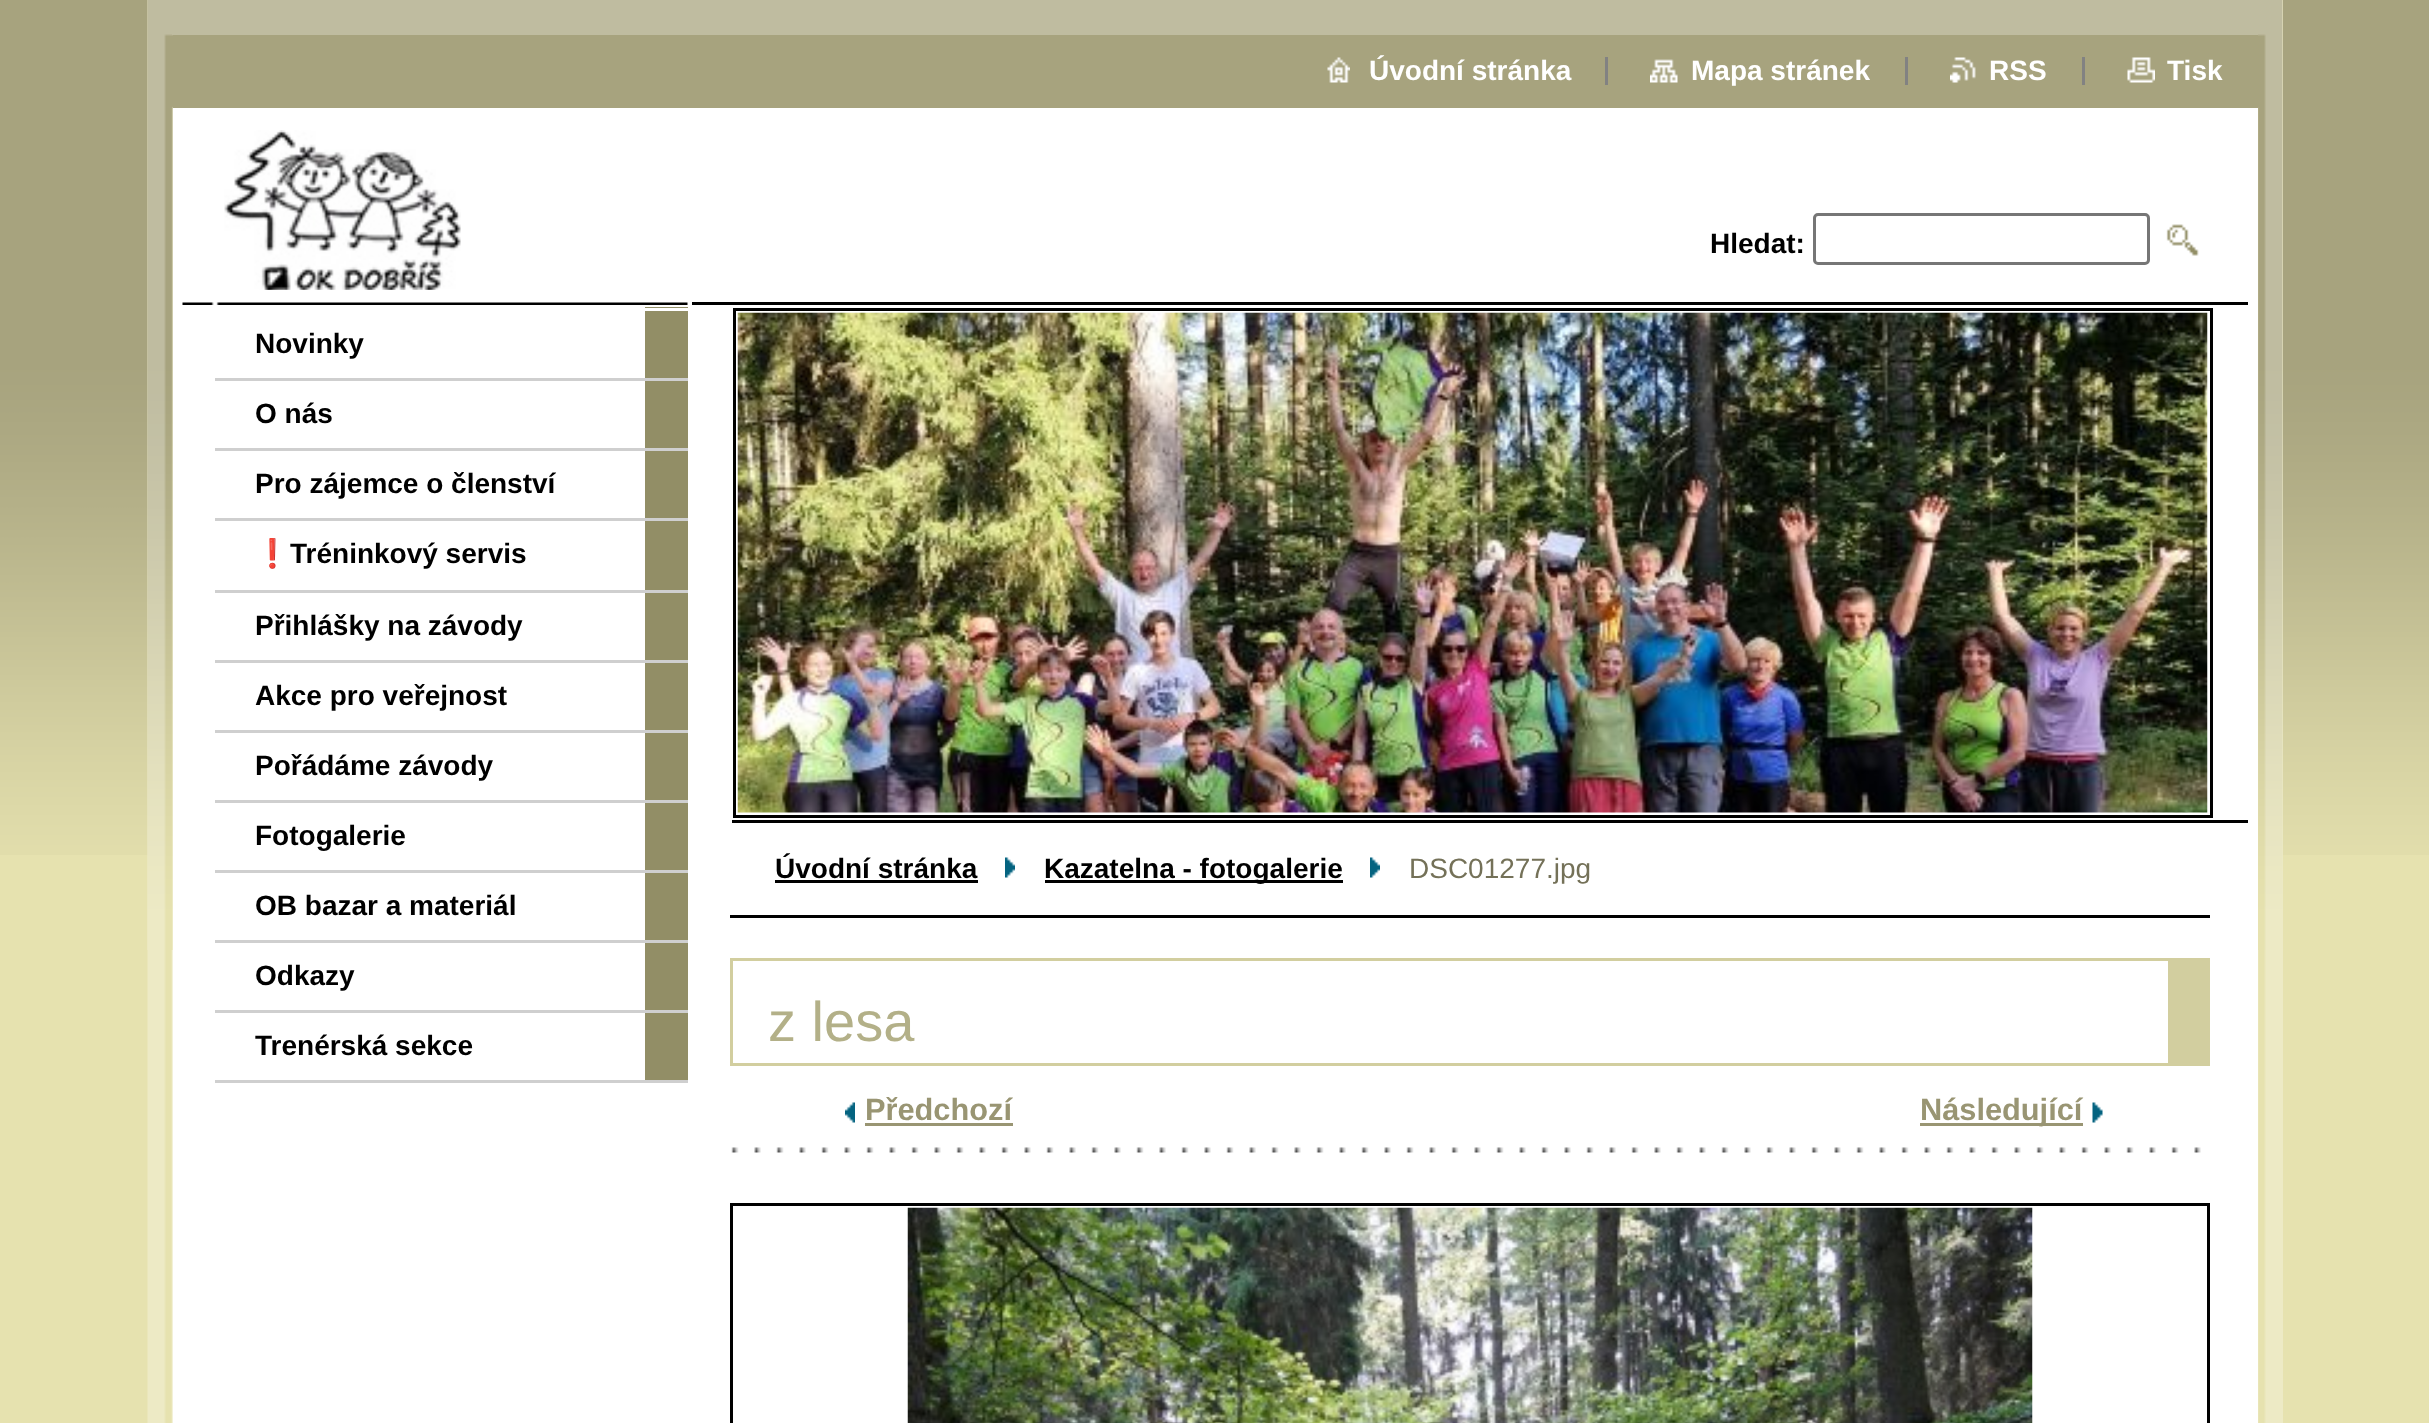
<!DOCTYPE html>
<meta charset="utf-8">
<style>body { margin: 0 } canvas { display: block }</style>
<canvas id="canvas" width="2429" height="1423"></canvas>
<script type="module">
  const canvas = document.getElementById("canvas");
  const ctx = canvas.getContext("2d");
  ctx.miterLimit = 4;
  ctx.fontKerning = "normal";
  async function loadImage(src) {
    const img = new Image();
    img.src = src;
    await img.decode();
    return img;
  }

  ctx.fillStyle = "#e6e2af";
  ctx.fillRect(0, 0, 2429, 1423);
  ctx.drawImage(await loadImage("img1.png"), 0, 0, 2429, 855);
  ctx.fillStyle = "#edeac5";
  ctx.fillRect(2266, 0, 17, 1423);
  ctx.drawImage(await loadImage("img2.png"), 147, 0, 2119, 1423);
  ctx.drawImage(await loadImage("img3.png"), 147, 0, 2136, 950);
  ctx.fillStyle = "#ffffff";
  ctx.fillRect(173, 108, 2085, 1315);
  ctx.fillStyle = "#bfbca0";
  ctx.fillRect(172, 34, 2086, 1);
  ctx.fillStyle = "#a7a37e";
  ctx.fillRect(173, 35, 2085, 73);
  ctx.drawImage(await loadImage("img4.png"), 1327, 57, 23, 26);
  ctx.font = "bold 28px Liberation Sans";
  ctx.fillStyle = "#ffffff";
  ctx.fillText("Úvodní stránka", 1369, 80);
  ctx.drawImage(await loadImage("img5.png"), 1650, 59, 28, 24);
  ctx.fillText("Mapa stránek", 1691, 80);
  ctx.fillStyle = "#828282";
  ctx.fillRect(1605, 57, 3, 28);
  ctx.drawImage(await loadImage("img6.png"), 1950, 57, 26, 26);
  ctx.fillStyle = "#ffffff";
  ctx.fillText("RSS", 1989, 80);
  ctx.fillStyle = "#828282";
  ctx.fillRect(1905, 57, 3, 28);
  ctx.drawImage(await loadImage("img7.png"), 2127, 57, 28, 26);
  ctx.fillStyle = "#ffffff";
  ctx.fillText("Tisk", 2167, 80);
  ctx.fillStyle = "#828282";
  ctx.fillRect(2082, 57, 3, 28);
  ctx.drawImage(await loadImage("img8.png"), 224, 130, 237, 160);
  ctx.fillStyle = "#000000";
  ctx.fillText("Hledat:", 1710, 253);
  ctx.beginPath();
  ctx.roundRect(1814.5, 214.5, 334, 49, 3.5);
  ctx.strokeStyle = "#767676";
  ctx.lineWidth = 3;
  ctx.stroke();
  ctx.drawImage(await loadImage("img9.png"), 2166, 224, 33, 32);
  ctx.drawImage(await loadImage("img10.png"), 182, 302, 506, 3);
  ctx.fillStyle = "#928e66";
  ctx.fillRect(645, 307, 43, 773);
  ctx.fillStyle = "#ffffff";
  ctx.fillRect(645, 308, 43, 3);
  ctx.fillStyle = "#cfcfcf";
  ctx.fillRect(215, 378, 473, 3);
  ctx.fillStyle = "#000000";
  ctx.fillText("Novinky", 255, 353);
  ctx.fillStyle = "#cfcfcf";
  ctx.fillRect(215, 448, 473, 3);
  ctx.fillStyle = "#000000";
  ctx.fillText("O nás", 255, 423);
  ctx.fillStyle = "#cfcfcf";
  ctx.fillRect(215, 518, 473, 3);
  ctx.fillStyle = "#000000";
  ctx.fillText("Pro zájemce o členství", 255, 493);
  ctx.fillStyle = "#cfcfcf";
  ctx.fillRect(215, 590, 473, 3);
  ctx.font = "bold 28px Noto Color Emoji";
  ctx.fillStyle = "#000000";
  ctx.fillText("❗️", 255, 563);
  ctx.font = "bold 28px Liberation Sans";
  ctx.fillText("Tréninkový servis", 290, 563);
  ctx.fillStyle = "#cfcfcf";
  ctx.fillRect(215, 660, 473, 3);
  ctx.fillStyle = "#000000";
  ctx.fillText("Přihlášky na závody", 255, 635);
  ctx.fillStyle = "#cfcfcf";
  ctx.fillRect(215, 730, 473, 3);
  ctx.fillStyle = "#000000";
  ctx.fillText("Akce pro veřejnost", 255, 705);
  ctx.fillStyle = "#cfcfcf";
  ctx.fillRect(215, 800, 473, 3);
  ctx.fillStyle = "#000000";
  ctx.fillText("Pořádáme závody", 255, 775);
  ctx.fillStyle = "#cfcfcf";
  ctx.fillRect(215, 870, 473, 3);
  ctx.fillStyle = "#000000";
  ctx.fillText("Fotogalerie", 255, 845);
  ctx.fillStyle = "#cfcfcf";
  ctx.fillRect(215, 940, 473, 3);
  ctx.fillStyle = "#000000";
  ctx.fillText("OB bazar a materiál", 255, 915);
  ctx.fillStyle = "#cfcfcf";
  ctx.fillRect(215, 1010, 473, 3);
  ctx.fillStyle = "#000000";
  ctx.fillText("Odkazy", 255, 985);
  ctx.fillStyle = "#cfcfcf";
  ctx.fillRect(215, 1080, 473, 3);
  ctx.fillStyle = "#000000";
  ctx.fillText("Trenérská sekce", 255, 1055);
  ctx.fillRect(692, 302, 1556, 3);
  ctx.fillRect(732, 820, 1516, 3);
  ctx.strokeStyle = "#000000";
  ctx.strokeRect(734.5, 309.5, 1477, 507);
  ctx.drawImage(await loadImage("img11.png"), 737, 312, 1471, 501);
  ctx.fillRect(730, 915, 1480, 3);
  ctx.fillText("Úvodní stránka", 775, 878);
  ctx.fillRect(775, 880, 203, 3);
  ctx.drawImage(await loadImage("img12.png"), 1005, 857, 10, 21);
  ctx.fillRect(1045, 880, 298, 3);
  ctx.fillText("Kazatelna - fotogalerie", 1044, 878);
  ctx.drawImage(await loadImage("img13.png"), 1370, 857, 10, 21);
  ctx.font = "28px Liberation Sans";
  ctx.fillStyle = "#747158";
  ctx.fillText("DSC01277.jpg", 1409, 878);
  ctx.fillStyle = "#d2ce9f";
  ctx.fillRect(730, 958, 1438, 3);
  ctx.fillRect(2168, 958, 42, 105);
  ctx.fillRect(730, 1063, 1480, 3);
  ctx.fillRect(730, 958, 3, 107);
  ctx.font = "56px Liberation Sans";
  ctx.fillStyle = "#b3b088";
  ctx.fillText("z lesa", 768, 1041);
  ctx.drawImage(await loadImage("img14.png"), 731, 1147, 1470, 6);
  ctx.drawImage(await loadImage("img15.png"), 845, 1102, 10, 21);
  ctx.font = "bold 30.75px Liberation Sans";
  ctx.fillStyle = "#999573";
  ctx.fillText("Předchozí", 865, 1120);
  ctx.fillRect(865, 1123, 148, 3);
  ctx.fillRect(1920, 1123, 163, 3);
  ctx.fillText("Následující", 1920, 1120);
  ctx.drawImage(await loadImage("img16.png"), 2092, 1102, 11, 21);
  ctx.strokeRect(731.5, 1204.5, 1477, 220);
  ctx.drawImage(await loadImage("img17.png"), 907, 1207, 1126, 216);
</script>
